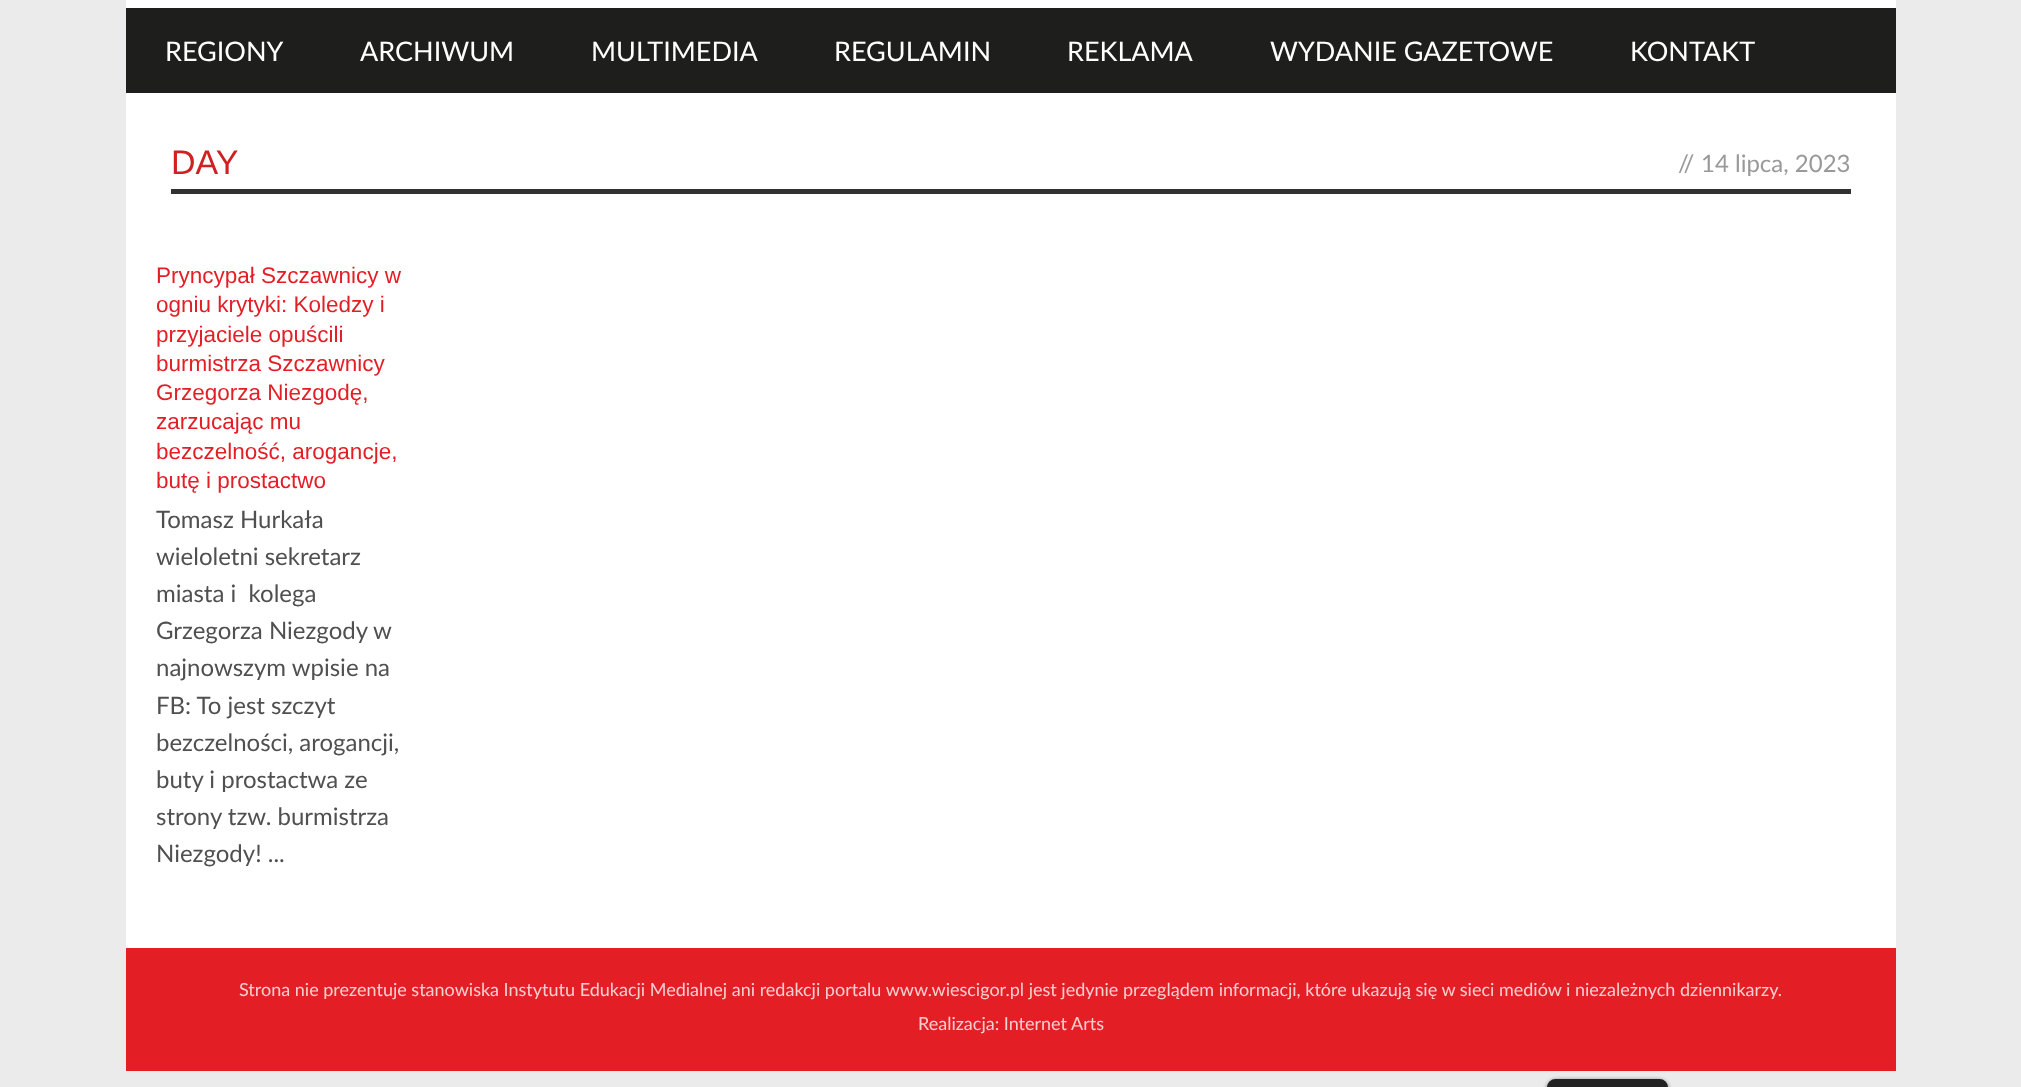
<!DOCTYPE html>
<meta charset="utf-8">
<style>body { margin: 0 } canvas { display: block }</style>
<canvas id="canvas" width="2021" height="1087"></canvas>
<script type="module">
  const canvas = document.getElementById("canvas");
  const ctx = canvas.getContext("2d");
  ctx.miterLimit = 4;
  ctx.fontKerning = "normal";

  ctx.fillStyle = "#ebebeb";
  ctx.fillRect(0, 0, 2021, 1087);
  ctx.fillStyle = "#ffffff";
  ctx.fillRect(126, 0, 1770, 8);
  ctx.fillStyle = "#1e1e1d";
  ctx.fillRect(126, 8, 1770, 85);
  ctx.font = "27px Lato";
  ctx.fillStyle = "#ffffff";
  ctx.fillText("REGIONY", 165, 61);
  ctx.fillText("ARCHIWUM", 360, 61);
  ctx.fillText("MULTIMEDIA", 591, 61);
  ctx.fillText("REGULAMIN", 834, 61);
  ctx.fillText("REKLAMA", 1067, 61);
  ctx.fillText("WYDANIE GAZETOWE", 1270, 61);
  ctx.fillText("KONTAKT", 1630, 61);
  ctx.fillRect(126, 93, 1770, 855);
  ctx.fillStyle = "#313131";
  ctx.fillRect(171, 189, 1680, 5);
  ctx.font = "34px Liberation Sans";
  ctx.fillStyle = "#cf2121";
  ctx.fillText("DAY", 171, 174);
  ctx.font = "24px Lato";
  ctx.fillStyle = "#999999";
  ctx.fillText("//", 1678, 172);
  ctx.fillText("14 lipca, 2023", 1701, 172);
  ctx.font = "22.5px Liberation Sans";
  ctx.fillStyle = "#e31e25";
  ctx.fillText("Pryncypał Szczawnicy w", 156, 283);
  ctx.fillText("ogniu krytyki: Koledzy i", 156, 312);
  ctx.fillText("przyjaciele opuścili", 156, 342);
  ctx.fillText("burmistrza Szczawnicy", 156, 371);
  ctx.fillText("Grzegorza Niezgodę,", 156, 400);
  ctx.fillText("zarzucając mu", 156, 429);
  ctx.fillText("bezczelność, arogancje,", 156, 459);
  ctx.fillText("butę i prostactwo", 156, 488);
  ctx.font = "24px Lato";
  ctx.fillStyle = "#505050";
  ctx.fillText("Tomasz Hurkała", 156, 528);
  ctx.fillText("wieloletni sekretarz", 156, 565);
  ctx.fillText("miasta i  kolega", 156, 602);
  ctx.fillText("Grzegorza Niezgody w", 156, 639);
  ctx.fillText("najnowszym wpisie na", 156, 676);
  ctx.fillText("FB: To jest szczyt", 156, 714);
  ctx.fillText("bezczelności, arogancji,", 156, 751);
  ctx.fillText("buty i prostactwa ze", 156, 788);
  ctx.fillText("strony tzw. burmistrza", 156, 825);
  ctx.fillText("Niezgody! ...", 156, 862);
  ctx.fillStyle = "#e31e25";
  ctx.fillRect(126, 948, 1770, 123);
  ctx.font = "18px Lato";
  ctx.fillStyle = "#f7cecf";
  ctx.fillText("Strona nie prezentuje stanowiska Instytutu Edukacji Medialnej ani redakcji portalu www.wiescigor.pl jest jedynie przeglądem informacji, które ukazują się w sieci mediów i niezależnych dziennikarzy.", 239, 996);
  ctx.fillText("Realizacja: Internet Arts", 918, 1030);
  ctx.fillStyle = "rgba(0, 0, 0, 0.6)";
  ctx.filter = "blur(2px)";
  ctx.beginPath();
  ctx.roundRect(1547, 1080, 121, 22, 9);
  ctx.fill();
  ctx.filter = "none";
  ctx.fillStyle = "#222222";
  ctx.beginPath();
  ctx.roundRect(1547, 1079, 121, 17, 9);
  ctx.fill();
</script>
